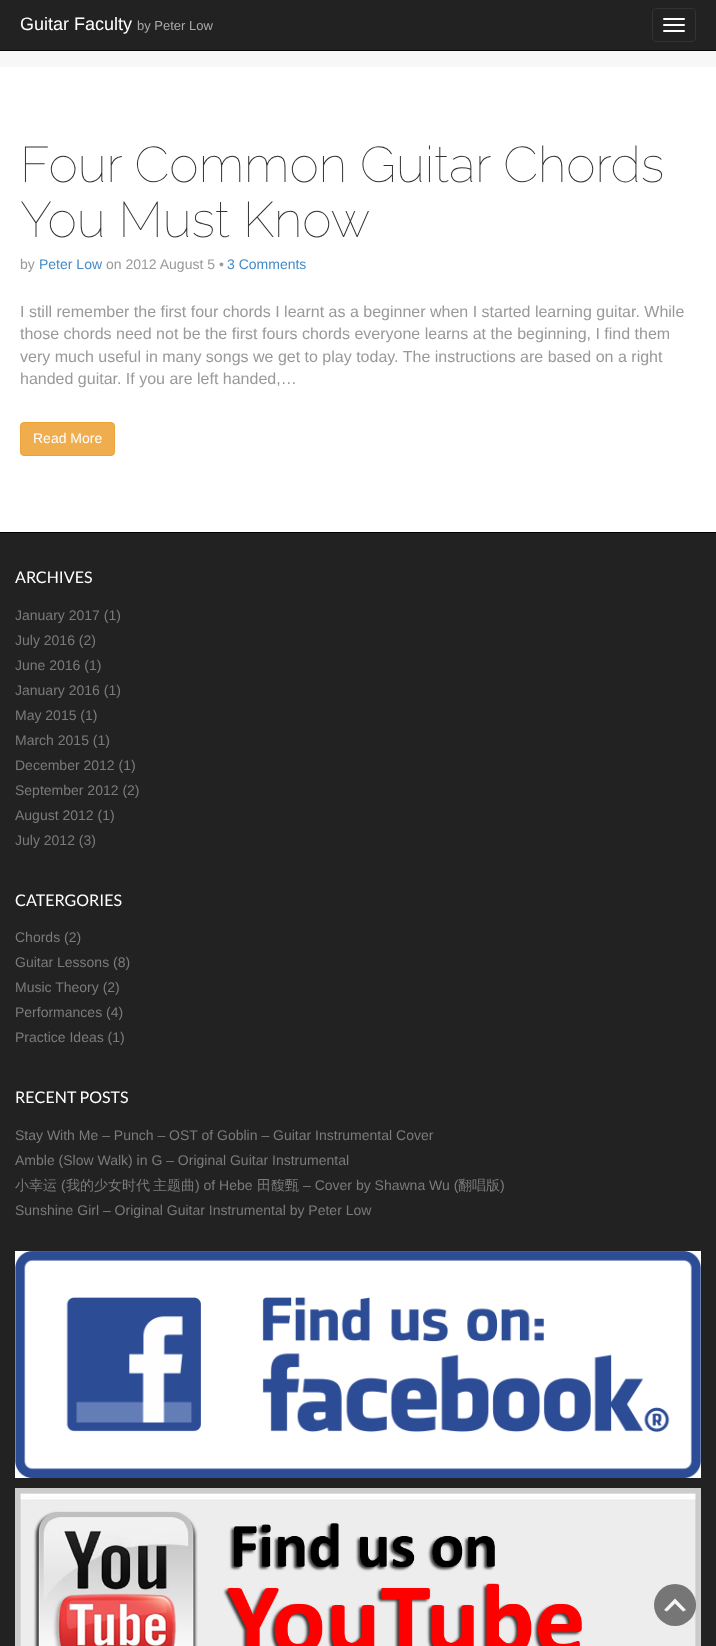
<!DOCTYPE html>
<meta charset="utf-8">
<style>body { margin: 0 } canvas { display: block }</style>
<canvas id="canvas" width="716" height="1646"></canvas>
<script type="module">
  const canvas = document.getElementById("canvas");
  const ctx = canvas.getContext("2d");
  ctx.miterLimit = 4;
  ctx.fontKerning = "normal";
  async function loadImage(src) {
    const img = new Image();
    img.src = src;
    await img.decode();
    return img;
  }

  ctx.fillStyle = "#f7f7f7";
  ctx.fillRect(0, 0, 716, 1646);
  ctx.fillStyle = "#222222";
  ctx.fillRect(0, 0, 716, 50);
  ctx.fillStyle = "#090909";
  ctx.fillRect(0, 50, 716, 1);
  ctx.font = "18px Liberation Sans";
  ctx.fillStyle = "#ffffff";
  ctx.fillText("Guitar Faculty", 20, 30);
  ctx.font = "13px Liberation Sans";
  ctx.fillStyle = "#aaaaaa";
  ctx.fillText("by Peter Low", 137, 30);
  ctx.beginPath();
  ctx.roundRect(652.5, 8.5, 43, 33, 3.5);
  ctx.strokeStyle = "#333333";
  ctx.stroke();
  ctx.fillStyle = "#ffffff";
  ctx.beginPath();
  ctx.roundRect(663, 18, 22, 2, 1);
  ctx.fill();
  ctx.beginPath();
  ctx.roundRect(663, 24, 22, 2, 1);
  ctx.fill();
  ctx.beginPath();
  ctx.roundRect(663, 30, 22, 2, 1);
  ctx.fill();
  ctx.fillRect(0, 67, 716, 465);
  ctx.font = "100 50px Raleway";
  ctx.fillStyle = "#333333";
  ctx.fillText("Four Common Guitar Chords", 20, 182);
  ctx.fillText("You Must Know", 20, 237);
  ctx.font = "14px Liberation Sans";
  ctx.fillStyle = "#999999";
  ctx.fillText("by", 20, 269);
  ctx.fillStyle = "#428bca";
  ctx.fillText("Peter Low", 39, 269);
  ctx.fillStyle = "#999999";
  ctx.fillText("on 2012 August 5 •", 106, 269);
  ctx.fillStyle = "#428bca";
  ctx.fillText("3 Comments", 227, 269);
  ctx.font = "16px Liberation Sans";
  ctx.fillStyle = "#999999";
  ctx.fillText("I still remember the first four chords I learnt as a beginner when I started learning guitar. While", 20, 317);
  ctx.fillText("those chords need not be the first fours chords everyone learns at the beginning, I find them", 20, 339);
  ctx.fillText("very much useful in many songs we get to play today. The instructions are based on a right", 20, 362);
  ctx.fillText("handed guitar. If you are left handed,…", 20, 384);
  ctx.fillStyle = "#f0ad4e";
  ctx.beginPath();
  ctx.roundRect(20.5, 422.5, 94, 33, 3.5);
  ctx.fill();
  ctx.strokeStyle = "#eea236";
  ctx.stroke();
  ctx.font = "14px Liberation Sans";
  ctx.fillStyle = "#ffffff";
  ctx.fillText("Read More", 33, 443);
  ctx.fillStyle = "#222222";
  ctx.fillRect(0, 533, 716, 1113);
  ctx.fillStyle = "#000000";
  ctx.fillRect(0, 532, 716, 1);
  ctx.font = "16px Lato";
  ctx.fillStyle = "#ffffff";
  ctx.fillText("ARCHIVES", 15, 583);
  ctx.font = "14px Liberation Sans";
  ctx.fillStyle = "#7b7b7b";
  ctx.fillText("January 2017 (1)", 15, 620);
  ctx.fillText("July 2016 (2)", 15, 645);
  ctx.fillText("June 2016 (1)", 15, 670);
  ctx.fillText("January 2016 (1)", 15, 695);
  ctx.fillText("May 2015 (1)", 15, 720);
  ctx.fillText("March 2015 (1)", 15, 745);
  ctx.fillText("December 2012 (1)", 15, 770);
  ctx.fillText("September 2012 (2)", 15, 795);
  ctx.fillText("August 2012 (1)", 15, 820);
  ctx.fillText("July 2012 (3)", 15, 845);
  ctx.font = "16px Lato";
  ctx.fillStyle = "#ffffff";
  ctx.fillText("CATERGORIES", 15, 906);
  ctx.font = "14px Liberation Sans";
  ctx.fillStyle = "#7b7b7b";
  ctx.fillText("Chords (2)", 15, 942);
  ctx.fillText("Guitar Lessons (8)", 15, 967);
  ctx.fillText("Music Theory (2)", 15, 992);
  ctx.fillText("Performances (4)", 15, 1017);
  ctx.fillText("Practice Ideas (1)", 15, 1042);
  ctx.font = "16px Lato";
  ctx.fillStyle = "#ffffff";
  ctx.fillText("RECENT POSTS", 15, 1103);
  ctx.font = "14px Liberation Sans";
  ctx.fillStyle = "#7b7b7b";
  ctx.fillText("Stay With Me – Punch – OST of Goblin – Guitar Instrumental Cover", 15, 1140);
  ctx.fillText("Amble (Slow Walk) in G – Original Guitar Instrumental", 15, 1165);
  ctx.font = "500 14px WenQuanYi Zen Hei";
  ctx.fillText("小幸运", 15, 1190);
  ctx.font = "14px Liberation Sans";
  ctx.fillText("(", 61, 1190);
  ctx.font = "500 14px WenQuanYi Zen Hei";
  ctx.fillText("我的少女时代", 66, 1190);
  ctx.fillText("主题曲", 153, 1190);
  ctx.font = "14px Liberation Sans";
  ctx.fillText(") of Hebe", 195, 1190);
  ctx.font = "500 14px WenQuanYi Zen Hei";
  ctx.fillText("田馥甄", 257, 1190);
  ctx.font = "14px Liberation Sans";
  ctx.fillText("– Cover by Shawna Wu (", 303, 1190);
  ctx.font = "500 14px WenQuanYi Zen Hei";
  ctx.fillText("翻唱版", 458, 1190);
  ctx.font = "14px Liberation Sans";
  ctx.fillText(")", 500, 1190);
  ctx.fillText("Sunshine Girl – Original Guitar Instrumental by Peter Low", 15, 1215);
  ctx.drawImage(await loadImage("img1.png"), 15, 1251, 686, 227);
  ctx.drawImage(await loadImage("img2.png"), 15, 1488, 686, 158);
  ctx.fillStyle = "rgba(0, 0, 0, 0.5)";
  ctx.beginPath();
  ctx.arc(675, 1605, 21, 0, Math.PI * 2);
  ctx.fill();
  ctx.fillStyle = "#f6f6f6";
  ctx.beginPath();
  ctx.moveTo(683, 1611.5);
  ctx.lineTo(675, 1603.5);
  ctx.lineTo(667, 1611.5);
  ctx.lineTo(664, 1610);
  ctx.lineTo(675, 1598.5);
  ctx.lineTo(686, 1610);
  ctx.closePath();
  ctx.fill();
</script>
